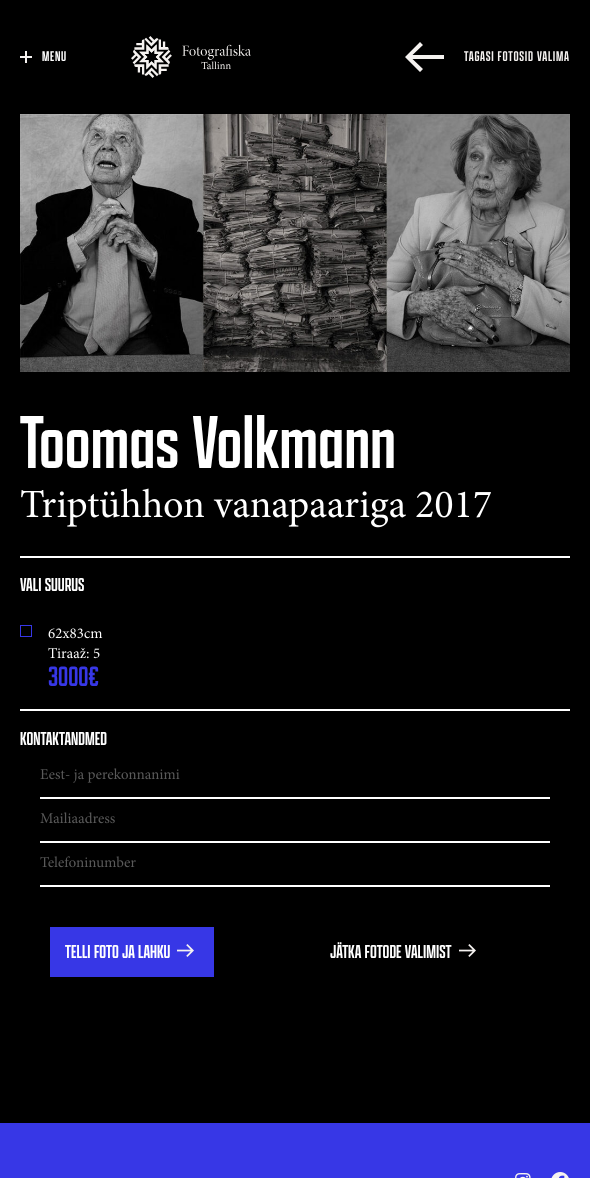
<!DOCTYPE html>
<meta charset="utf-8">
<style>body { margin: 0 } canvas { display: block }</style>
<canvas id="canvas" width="590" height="1178"></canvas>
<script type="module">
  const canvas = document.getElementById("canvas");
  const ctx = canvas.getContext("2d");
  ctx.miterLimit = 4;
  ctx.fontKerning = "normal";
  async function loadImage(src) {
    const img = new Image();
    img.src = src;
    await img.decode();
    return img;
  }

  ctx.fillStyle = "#000000";
  ctx.fillRect(0, 0, 590, 1178);
  ctx.drawImage(await loadImage("img1.png"), 20, 51, 12, 12);
  ctx.letterSpacing = "0.75px";
  ctx.font = "15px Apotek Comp";
  ctx.fillStyle = "#ffffff";
  ctx.fillText("MENU", 42, 61);
  ctx.drawImage(await loadImage("img2.png"), 131, 36, 120, 42);
  ctx.fillStyle = "#f5f2f0";
  ctx.beginPath();
  ctx.moveTo(405, 57);
  ctx.lineTo(420, 72);
  ctx.lineTo(423, 69);
  ctx.lineTo(412.5, 59);
  ctx.lineTo(444, 59);
  ctx.lineTo(444, 55);
  ctx.lineTo(412.5, 55);
  ctx.lineTo(423, 45);
  ctx.lineTo(420, 42);
  ctx.closePath();
  ctx.fill();
  ctx.fillText("TAGASI FOTOSID VALIMA", 464, 61);
  ctx.drawImage(await loadImage("img3.png"), 20, 114, 550, 258);
  ctx.letterSpacing = "0px";
  ctx.font = "80px Apotek Comp";
  ctx.fillStyle = "#ffffff";
  ctx.fillText("Toomas Volkmann", 20, 468);
  ctx.fillRect(20, 556, 550, 2);
  ctx.drawImage(await loadImage("img4.png"), 21, 488, 470, 40);
  ctx.font = "20px Apotek Comp";
  ctx.fillText("VALI SUURUS", 20, 591);
  ctx.fillRect(20, 709, 550, 2);
  ctx.strokeStyle = "#3737e6";
  ctx.strokeRect(20.5, 625.5, 11, 11);
  ctx.drawImage(await loadImage("img5.png"), 48, 628, 55, 11);
  ctx.drawImage(await loadImage("img6.png"), 48, 647, 41, 12);
  ctx.drawImage(await loadImage("img7.png"), 93, 648, 7, 11);
  ctx.font = "30px Apotek Comp";
  ctx.fillStyle = "#3737e6";
  ctx.fillText("3000€", 48, 686);
  ctx.font = "20px Apotek Comp";
  ctx.fillStyle = "#ffffff";
  ctx.fillText("KONTAKTANDMED", 20, 745);
  ctx.fillRect(40, 797, 510, 2);
  ctx.drawImage(await loadImage("img8.png"), 40, 768, 140, 15);
  ctx.fillRect(40, 841, 510, 2);
  ctx.drawImage(await loadImage("img9.png"), 40, 812, 75, 12);
  ctx.fillRect(40, 885, 510, 2);
  ctx.drawImage(await loadImage("img10.png"), 40, 856, 96, 12);
  ctx.fillStyle = "#3737e6";
  ctx.fillRect(50, 927, 164, 50);
  ctx.fillStyle = "#ffffff";
  ctx.fillText("TELLI FOTO JA LAHKU", 65, 958);
  ctx.drawImage(await loadImage("img11.png"), 177, 944, 17, 13);
  ctx.fillText("JÄTKA FOTODE VALIMIST", 330, 958);
  ctx.drawImage(await loadImage("img12.png"), 459, 944, 17, 13);
  ctx.fillStyle = "#3737e6";
  ctx.fillRect(0, 1123, 590, 55);
  ctx.drawImage(await loadImage("img13.png"), 515, 1173, 16, 5);
  ctx.drawImage(await loadImage("img14.png"), 551, 1172, 18, 6);
</script>
